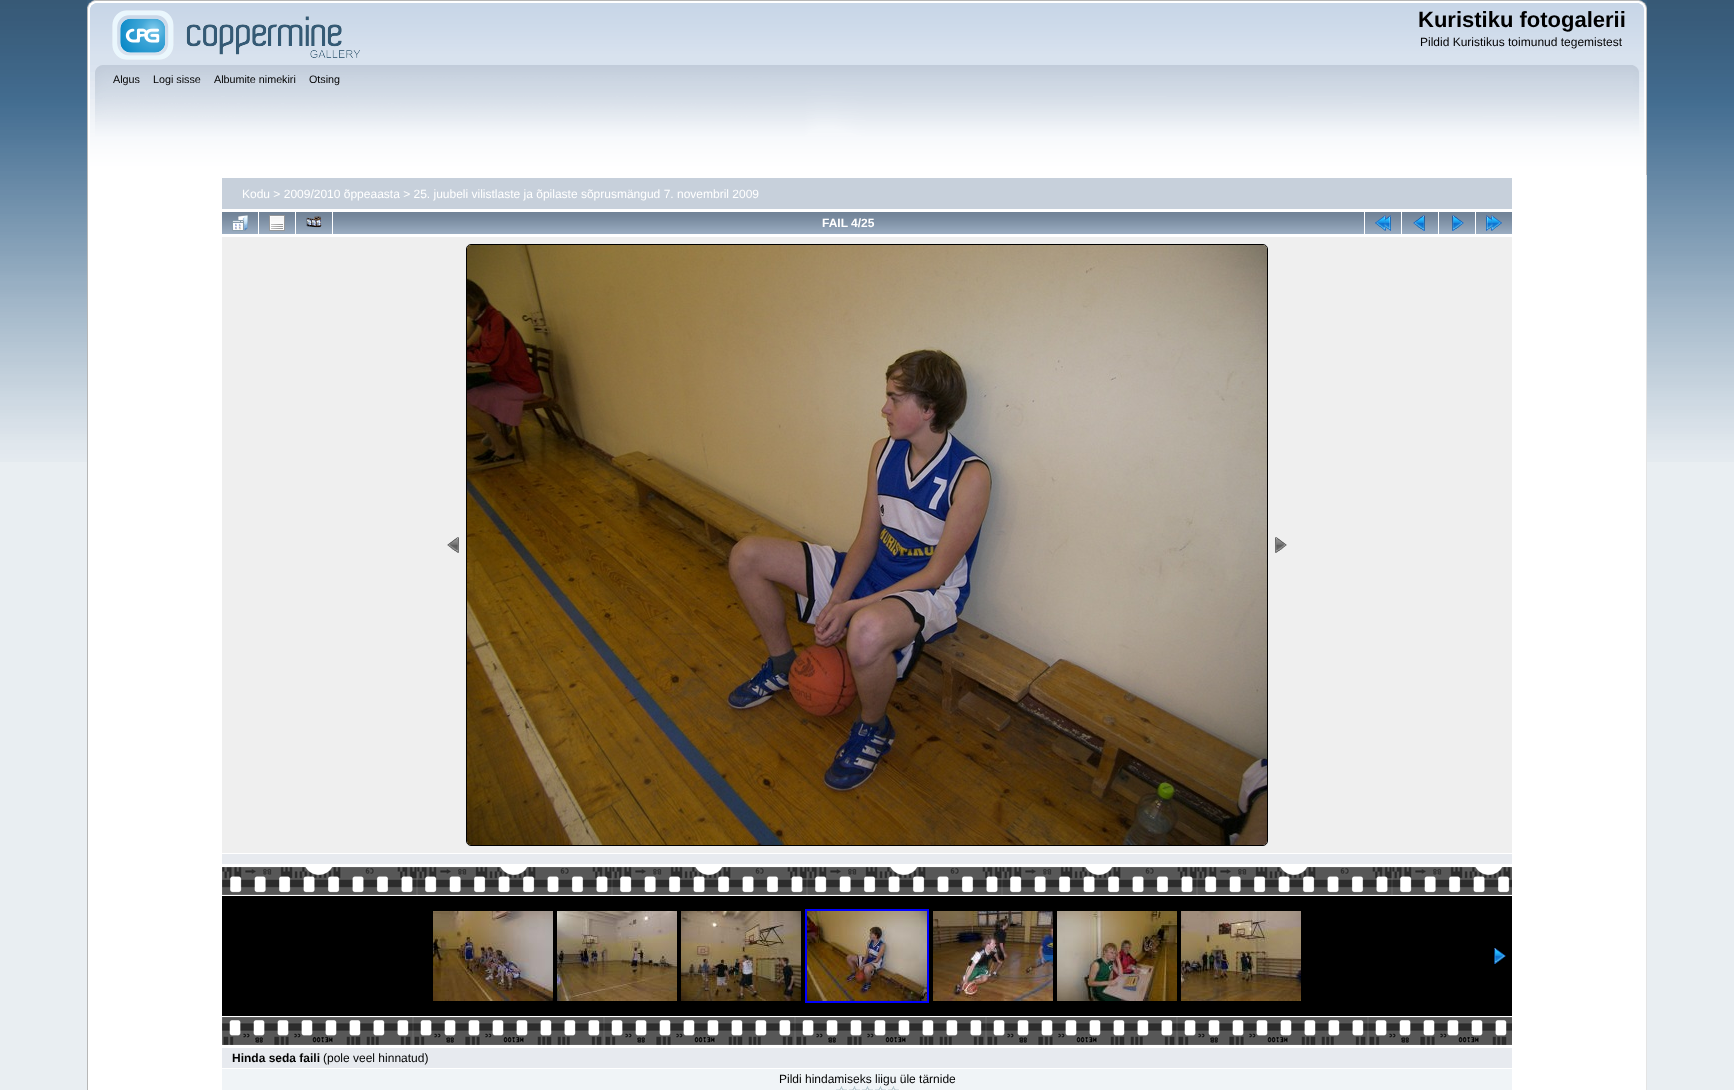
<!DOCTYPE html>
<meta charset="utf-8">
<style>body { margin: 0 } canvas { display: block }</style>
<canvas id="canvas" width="1734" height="1090"></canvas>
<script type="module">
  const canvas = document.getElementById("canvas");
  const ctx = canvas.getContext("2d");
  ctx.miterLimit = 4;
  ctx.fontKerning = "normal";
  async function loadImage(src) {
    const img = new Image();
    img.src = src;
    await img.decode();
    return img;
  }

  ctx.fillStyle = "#e9eef2";
  ctx.fillRect(0, 0, 1734, 1090);
  ctx.drawImage(await loadImage("img1.png"), 0, 0, 1734, 462);
  ctx.drawImage(await loadImage("img2.png"), 87, 0, 1552, 65);
  ctx.drawImage(await loadImage("img3.png"), 1639, 0, 8, 65);
  ctx.drawImage(await loadImage("img4.png"), 112, 10, 248, 50);
  ctx.font = "bold 22px Liberation Sans";
  ctx.fillStyle = "#000000";
  ctx.fillText("Kuristiku fotogalerii", 1418, 27);
  ctx.font = "12px Liberation Sans";
  ctx.fillText("Pildid Kuristikus toimunud tegemistest", 1420, 46);
  ctx.drawImage(await loadImage("img5.png"), 87, 65, 1546, 110);
  ctx.drawImage(await loadImage("img6.png"), 1633, 65, 14, 110);
  ctx.font = "10.75px Liberation Sans";
  ctx.fillText("Algus", 113, 83);
  ctx.fillText("Logi sisse", 153, 83);
  ctx.fillText("Albumite nimekiri", 214, 83);
  ctx.fillText("Otsing", 309, 83);
  ctx.fillStyle = "#ffffff";
  ctx.fillRect(88, 175, 1558, 915);
  ctx.fillStyle = "#b7b7b7";
  ctx.fillRect(87, 175, 1, 915);
  ctx.fillStyle = "#e4e4e4";
  ctx.fillRect(1646, 175, 1, 915);
  ctx.fillStyle = "#c7d0db";
  ctx.fillRect(222, 178, 1290, 31);
  ctx.font = "12px Liberation Sans";
  ctx.fillStyle = "#ffffff";
  ctx.fillText("Kodu > 2009/2010 õppeaasta > 25. juubeli vilistlaste ja õpilaste sõprusmängud 7. novembril 2009", 242, 198);
  ctx.drawImage(await loadImage("img7.png"), 222, 212, 36, 22);
  ctx.drawImage(await loadImage("img8.png"), 232, 215, 16, 16);
  ctx.drawImage(await loadImage("img7.png"), 259, 212, 36, 22);
  ctx.drawImage(await loadImage("img9.png"), 269, 215, 16, 16);
  ctx.drawImage(await loadImage("img7.png"), 296, 212, 36, 22);
  ctx.drawImage(await loadImage("img10.png"), 306, 216, 16, 12);
  ctx.drawImage(await loadImage("img11.png"), 333, 212, 1031, 22);
  ctx.font = "bold 12px Liberation Sans";
  ctx.fillText("FAIL 4/25", 822, 227);
  ctx.drawImage(await loadImage("img7.png"), 1365, 212, 36, 22);
  ctx.drawImage(await loadImage("img12.png"), 1375, 215, 16, 16);
  ctx.drawImage(await loadImage("img7.png"), 1402, 212, 36, 22);
  ctx.drawImage(await loadImage("img13.png"), 1413, 215, 12, 16);
  ctx.drawImage(await loadImage("img7.png"), 1439, 212, 36, 22);
  ctx.drawImage(await loadImage("img14.png"), 1452, 215, 12, 16);
  ctx.drawImage(await loadImage("img7.png"), 1476, 212, 36, 22);
  ctx.drawImage(await loadImage("img15.png"), 1486, 215, 16, 16);
  ctx.fillStyle = "#efefef";
  ctx.fillRect(222, 237, 1290, 616);
  ctx.drawImage(await loadImage("img16.png"), 447, 537, 12, 16);
  ctx.beginPath();
  ctx.roundRect(466.5, 244.5, 801, 601, 4.5);
  ctx.strokeStyle = "#000000";
  ctx.stroke();
  ctx.drawImage(await loadImage("img17.png"), 467, 245, 800, 600);
  ctx.drawImage(await loadImage("img18.png"), 1275, 537, 12, 16);
  ctx.fillStyle = "#e7eaef";
  ctx.fillRect(222, 854, 1290, 10);
  ctx.drawImage(await loadImage("img19.png"), 222, 867, 1290, 28);
  ctx.fillStyle = "#000000";
  ctx.fillRect(222, 896, 1290, 120);
  ctx.drawImage(await loadImage("img20.png"), 433, 911, 120, 90);
  ctx.drawImage(await loadImage("img21.png"), 557, 911, 120, 90);
  ctx.drawImage(await loadImage("img22.png"), 681, 911, 120, 90);
  ctx.strokeStyle = "#0000ff";
  ctx.lineWidth = 2;
  ctx.strokeRect(806, 910, 122, 92);
  ctx.drawImage(await loadImage("img23.png"), 807, 911, 120, 90);
  ctx.drawImage(await loadImage("img24.png"), 933, 911, 120, 90);
  ctx.drawImage(await loadImage("img25.png"), 1057, 911, 120, 90);
  ctx.drawImage(await loadImage("img26.png"), 1181, 911, 120, 90);
  ctx.drawImage(await loadImage("img27.png"), 1494, 948, 12, 16);
  ctx.drawImage(await loadImage("img28.png"), 222, 1017, 1290, 28);
  ctx.fillStyle = "#e7eaef";
  ctx.fillRect(222, 1048, 1290, 20);
  ctx.fillStyle = "#000000";
  ctx.fillText("Hinda seda faili", 232, 1062);
  ctx.font = "12px Liberation Sans";
  ctx.fillText("(pole veel hinnatud)", 323, 1062);
  ctx.fillStyle = "#f0f4f7";
  ctx.fillRect(222, 1069, 1290, 21);
  ctx.fillStyle = "#000000";
  ctx.fillText("Pildi hindamiseks liigu üle tärnide", 779, 1083);
  ctx.drawImage(await loadImage("img29.png"), 836, 1086, 12, 4);
  ctx.drawImage(await loadImage("img29.png"), 849, 1086, 12, 4);
  ctx.drawImage(await loadImage("img29.png"), 862, 1086, 12, 4);
  ctx.drawImage(await loadImage("img29.png"), 875, 1086, 12, 4);
  ctx.drawImage(await loadImage("img29.png"), 888, 1086, 12, 4);
</script>
